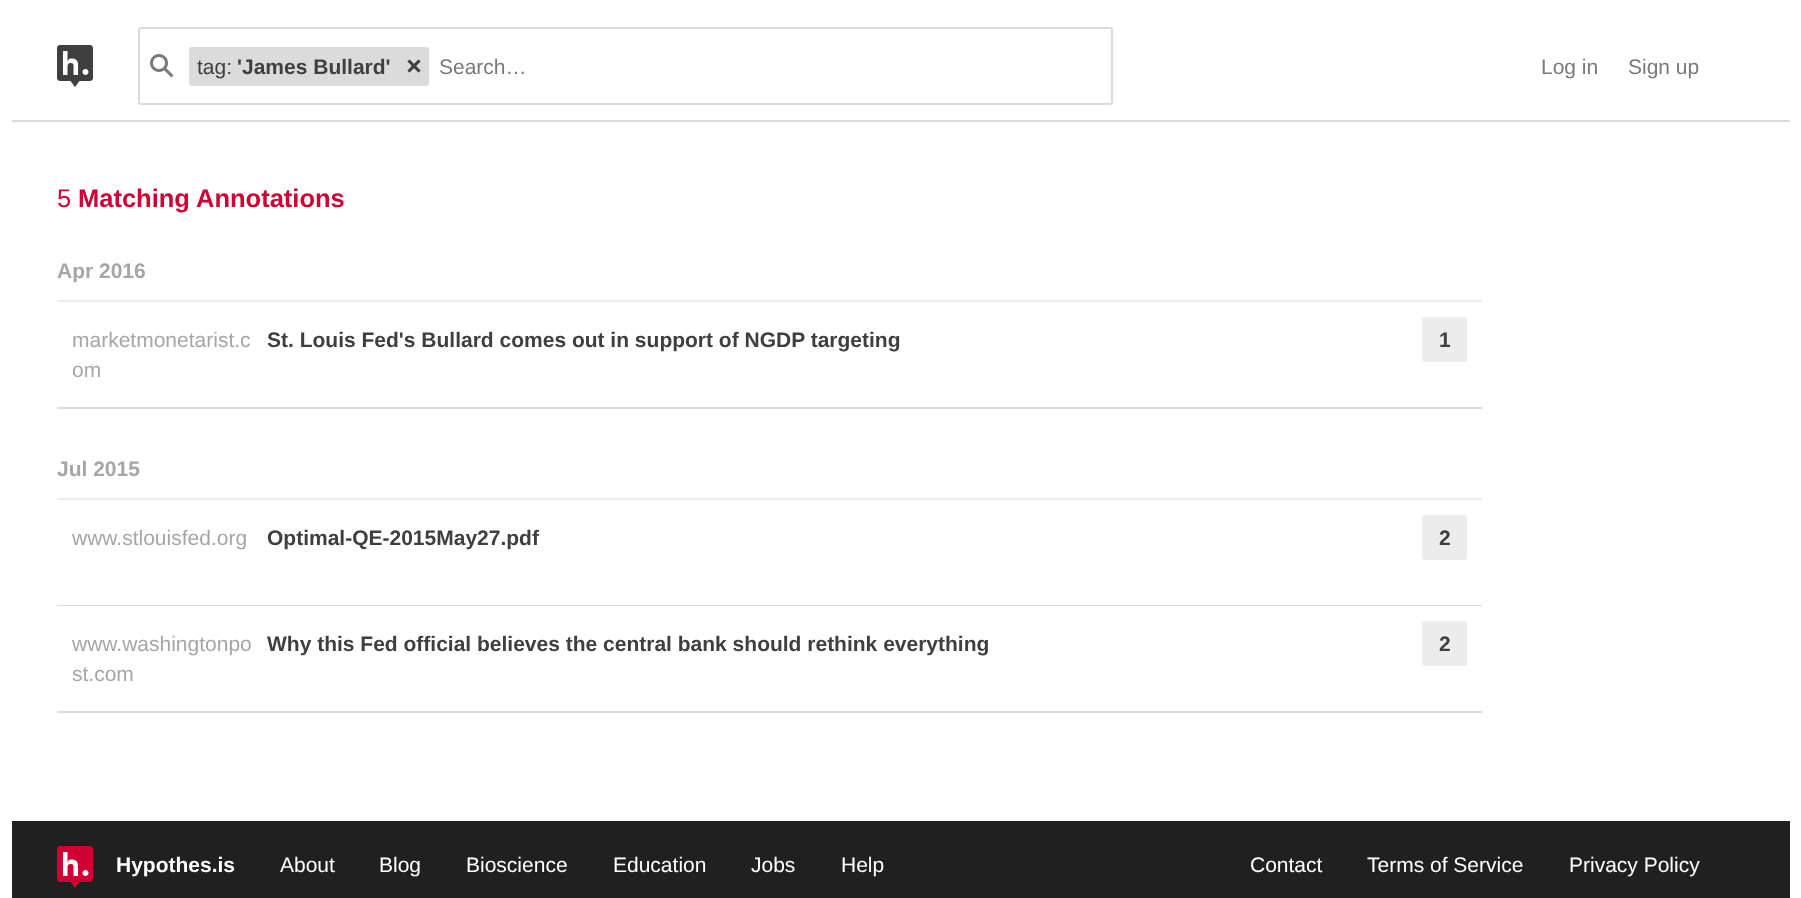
<!DOCTYPE html>
<meta charset="utf-8">
<style>body { margin: 0 } canvas { display: block }</style>
<canvas id="canvas" width="1801" height="898"></canvas>
<script type="module">
  const canvas = document.getElementById("canvas");
  const ctx = canvas.getContext("2d");
  ctx.miterLimit = 4;
  ctx.fontKerning = "normal";
  async function loadImage(src) {
    const img = new Image();
    img.src = src;
    await img.decode();
    return img;
  }

  ctx.fillStyle = "#ffffff";
  ctx.fillRect(0, 0, 1801, 898);
  ctx.fillStyle = "#dbdbdb";
  ctx.fillRect(12, 120, 1778, 2);
  ctx.drawImage(await loadImage("img1.png"), 57, 45, 36, 42);
  ctx.beginPath();
  ctx.roundRect(139, 28, 973, 76, 2);
  ctx.strokeStyle = "#dbdbdb";
  ctx.lineWidth = 2;
  ctx.stroke();
  ctx.drawImage(await loadImage("img2.png"), 150, 54, 24, 24);
  ctx.beginPath();
  ctx.roundRect(189, 47, 240, 39, 3);
  ctx.fill();
  ctx.font = "21px Liberation Sans";
  ctx.fillStyle = "#3f3f3f";
  ctx.fillText("tag:", 197, 74);
  ctx.font = "bold 21px Liberation Sans";
  ctx.fillText("'James Bullard'", 237, 74);
  ctx.drawImage(await loadImage("img3.png"), 407, 59, 14, 14);
  ctx.font = "21px Liberation Sans";
  ctx.fillStyle = "#7a7a7a";
  ctx.fillText("Search…", 439, 74);
  ctx.fillText("Log in", 1541, 74);
  ctx.fillText("Sign up", 1628, 74);
  ctx.font = "25.5px Liberation Sans";
  ctx.fillStyle = "#d00032";
  ctx.fillText("5", 57, 207);
  ctx.font = "bold 25.5px Liberation Sans";
  ctx.fillText("Matching Annotations", 78, 207);
  ctx.fillStyle = "#ececec";
  ctx.fillRect(57, 300, 1425, 2);
  ctx.font = "bold 21px Liberation Sans";
  ctx.fillStyle = "#a6a6a6";
  ctx.fillText("Apr 2016", 57, 278);
  ctx.fillStyle = "#dbdbdb";
  ctx.fillRect(57, 407, 1425, 2);
  ctx.font = "21px Liberation Sans";
  ctx.fillStyle = "#a6a6a6";
  ctx.fillText("marketmonetarist.c", 72, 347);
  ctx.fillText("om", 72, 377);
  ctx.font = "bold 21px Liberation Sans";
  ctx.fillStyle = "#3f3f3f";
  ctx.fillText("St. Louis Fed's Bullard comes out in support of NGDP targeting", 267, 347);
  ctx.fillStyle = "#ececec";
  ctx.beginPath();
  ctx.roundRect(1422, 317, 45, 45, 3);
  ctx.fill();
  ctx.fillStyle = "#3f3f3f";
  ctx.fillText("1", 1439, 347);
  ctx.fillStyle = "#ececec";
  ctx.fillRect(57, 498, 1425, 2);
  ctx.fillStyle = "#a6a6a6";
  ctx.fillText("Jul 2015", 57, 476);
  ctx.fillStyle = "#dbdbdb";
  ctx.fillRect(57, 605, 1425, 1);
  ctx.font = "21px Liberation Sans";
  ctx.fillStyle = "#a6a6a6";
  ctx.fillText("www.stlouisfed.org", 72, 545);
  ctx.font = "bold 21px Liberation Sans";
  ctx.fillStyle = "#3f3f3f";
  ctx.fillText("Optimal-QE-2015May27.pdf", 267, 545);
  ctx.fillStyle = "#ececec";
  ctx.beginPath();
  ctx.roundRect(1422, 515, 45, 45, 3);
  ctx.fill();
  ctx.fillStyle = "#3f3f3f";
  ctx.fillText("2", 1439, 545);
  ctx.fillStyle = "#dbdbdb";
  ctx.fillRect(57, 711, 1425, 2);
  ctx.font = "21px Liberation Sans";
  ctx.fillStyle = "#a6a6a6";
  ctx.fillText("www.washingtonpo", 72, 651);
  ctx.fillText("st.com", 72, 681);
  ctx.font = "bold 21px Liberation Sans";
  ctx.fillStyle = "#3f3f3f";
  ctx.fillText("Why this Fed official believes the central bank should rethink everything", 267, 651);
  ctx.fillStyle = "#ececec";
  ctx.beginPath();
  ctx.roundRect(1422, 621, 45, 45, 3);
  ctx.fill();
  ctx.fillStyle = "#3f3f3f";
  ctx.fillText("2", 1439, 651);
  ctx.fillStyle = "#202020";
  ctx.fillRect(12, 821, 1778, 77);
  ctx.drawImage(await loadImage("img4.png"), 57, 846, 36, 42);
  ctx.fillStyle = "#ffffff";
  ctx.fillText("Hypothes.is", 116, 872);
  ctx.font = "21px Liberation Sans";
  ctx.fillText("About", 280, 872);
  ctx.fillText("Blog", 379, 872);
  ctx.fillText("Bioscience", 466, 872);
  ctx.fillText("Education", 613, 872);
  ctx.fillText("Jobs", 751, 872);
  ctx.fillText("Help", 841, 872);
  ctx.fillText("Contact", 1250, 872);
  ctx.fillText("Terms of Service", 1367, 872);
  ctx.fillText("Privacy Policy", 1569, 872);
</script>
